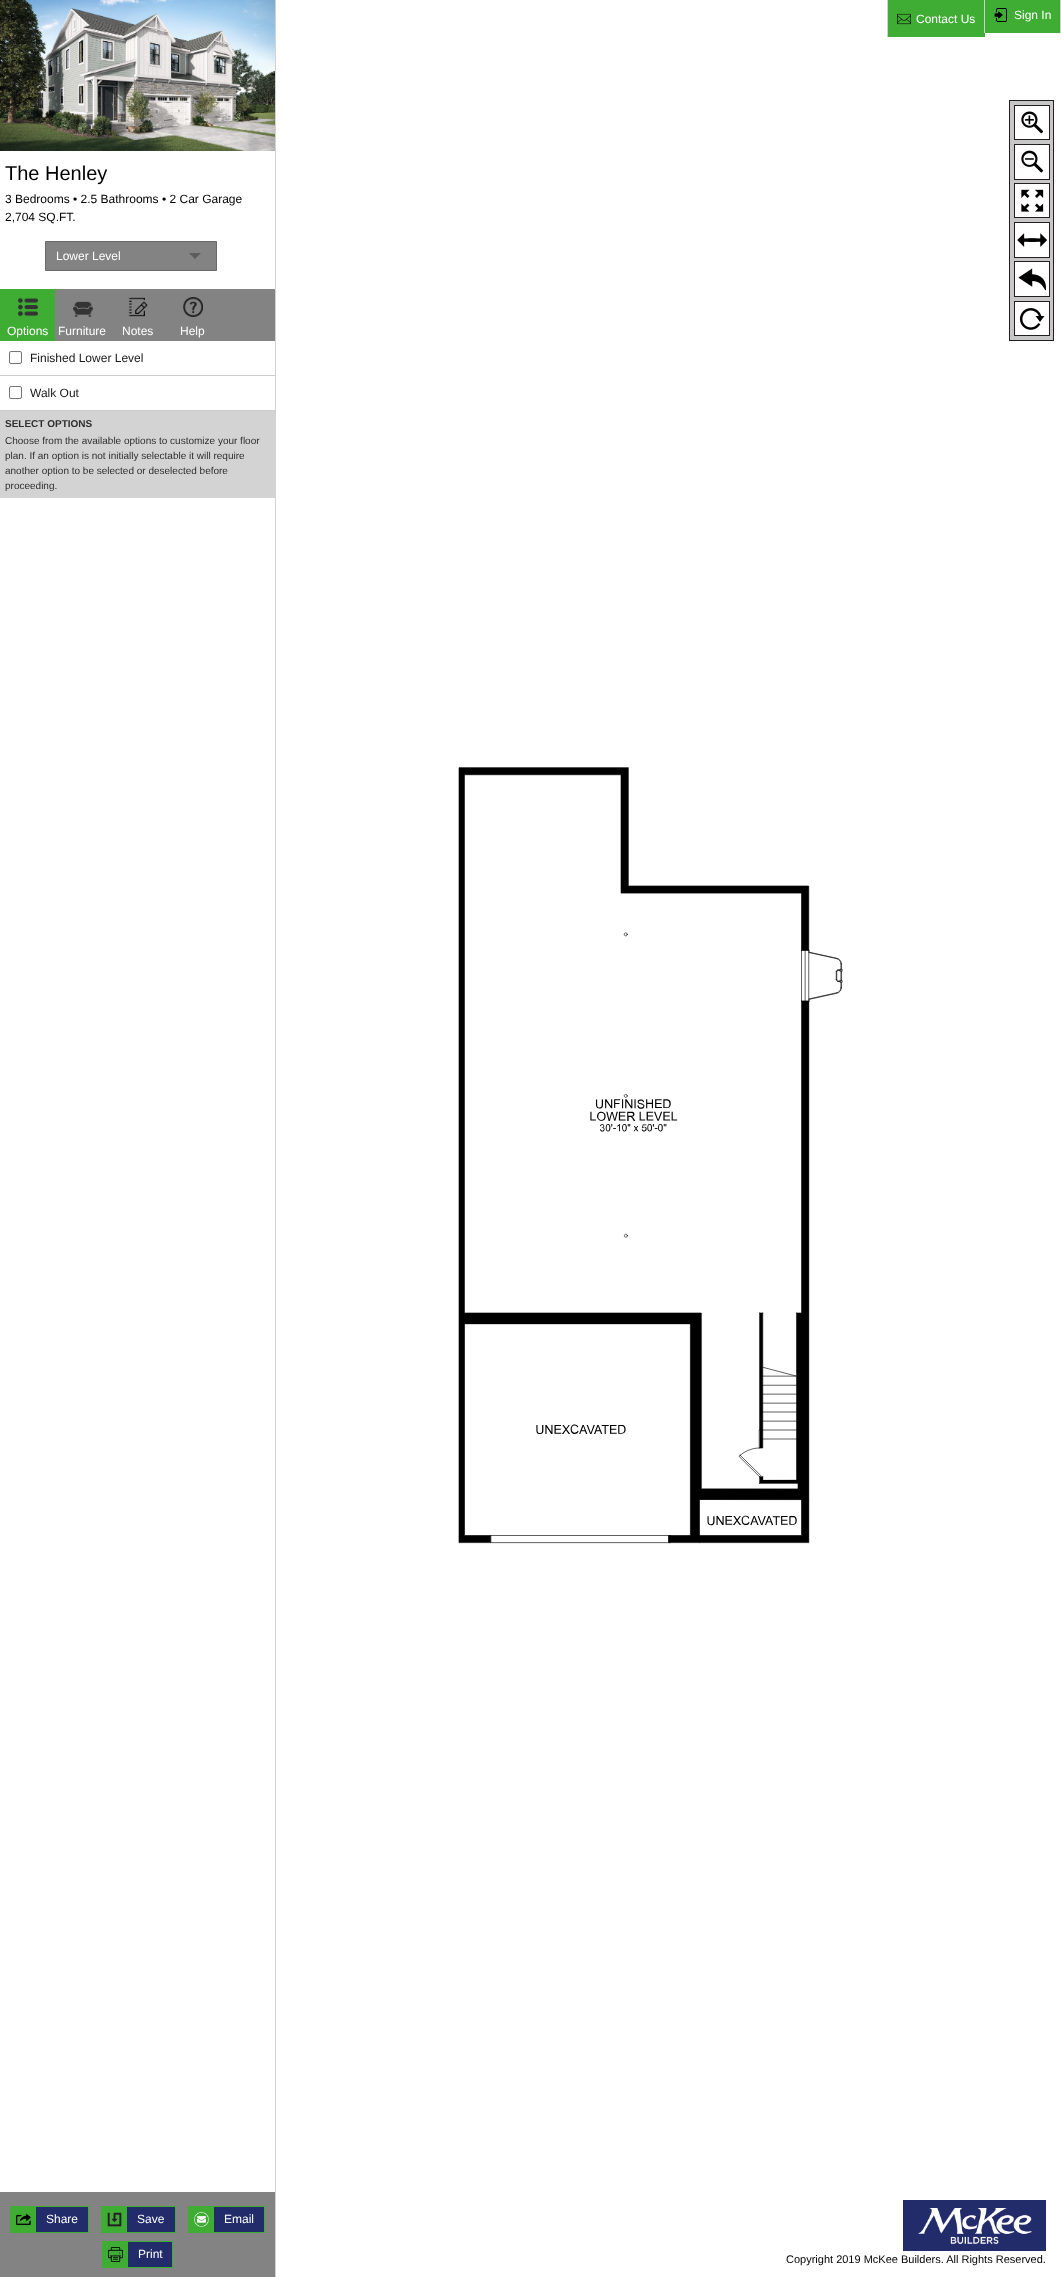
<!DOCTYPE html>
<meta charset="utf-8">
<style>body { margin: 0 } canvas { display: block }</style>
<canvas id="canvas" width="1061" height="2277"></canvas>
<script type="module">
  const canvas = document.getElementById("canvas");
  const ctx = canvas.getContext("2d");
  ctx.miterLimit = 4;
  ctx.fontKerning = "normal";
  async function loadImage(src) {
    const img = new Image();
    img.src = src;
    await img.decode();
    return img;
  }

  ctx.fillStyle = "#ffffff";
  ctx.fillRect(0, 0, 1061, 2277);
  ctx.fillStyle = "#3fad34";
  ctx.fillRect(888, 0, 97, 37);
  ctx.fillStyle = "#cfcfcf";
  ctx.fillRect(887, 0, 1, 37);
  ctx.drawImage(await loadImage("img1.png"), 897, 13, 14, 12);
  ctx.font = "12px Liberation Sans";
  ctx.fillStyle = "#ffffff";
  ctx.fillText("Contact Us", 916, 23);
  ctx.fillStyle = "#3fad34";
  ctx.fillRect(985, 0, 75, 33);
  ctx.fillStyle = "#cfcfcf";
  ctx.fillRect(1060, 0, 1, 33);
  ctx.fillRect(984, 0, 1, 33);
  ctx.drawImage(await loadImage("img2.png"), 994, 8, 13, 14);
  ctx.fillStyle = "#ffffff";
  ctx.fillText("Sign In", 1014, 19);
  ctx.fillStyle = "#d3d3d3";
  ctx.fillRect(275, 0, 1, 2277);
  ctx.drawImage(await loadImage("img3.png"), 0, 0, 275, 151);
  ctx.font = "20px Liberation Sans";
  ctx.fillStyle = "#000000";
  ctx.fillText("The Henley", 5, 180);
  ctx.font = "12px Liberation Sans";
  ctx.fillText("3 Bedrooms • 2.5 Bathrooms • 2 Car Garage", 5, 203);
  ctx.fillText("2,704 SQ.FT.", 5, 221);
  ctx.fillStyle = "#838383";
  ctx.beginPath();
  ctx.rect(45.5, 241.5, 171, 29);
  ctx.fill();
  ctx.strokeStyle = "#696969";
  ctx.stroke();
  ctx.fillStyle = "#ffffff";
  ctx.fillText("Lower Level", 56, 260);
  ctx.fillStyle = "#5c5c5c";
  ctx.beginPath();
  ctx.moveTo(189, 253);
  ctx.lineTo(201, 253);
  ctx.lineTo(195, 259);
  ctx.closePath();
  ctx.fill();
  ctx.fillStyle = "#838383";
  ctx.fillRect(55, 289, 220, 52);
  ctx.fillStyle = "#3fad34";
  ctx.fillRect(0, 289, 55, 52);
  ctx.drawImage(await loadImage("img4.png"), 18, 297, 20, 20);
  ctx.fillStyle = "#ffffff";
  ctx.fillText("Options", 7, 335);
  ctx.drawImage(await loadImage("img5.png"), 73, 301, 20, 16);
  ctx.fillText("Furniture", 58, 335);
  ctx.drawImage(await loadImage("img6.png"), 128, 297, 20, 20);
  ctx.fillText("Notes", 122, 335);
  ctx.drawImage(await loadImage("img7.png"), 183, 297, 20, 20);
  ctx.fillText("Help", 180, 335);
  ctx.fillStyle = "#cccccc";
  ctx.fillRect(0, 375, 275, 1);
  ctx.beginPath();
  ctx.roundRect(9.5, 351.5, 12, 12, 1.5);
  ctx.strokeStyle = "#767676";
  ctx.stroke();
  ctx.fillStyle = "#191819";
  ctx.fillText("Finished Lower Level", 30, 362);
  ctx.fillStyle = "#cccccc";
  ctx.fillRect(0, 410, 275, 1);
  ctx.beginPath();
  ctx.roundRect(9.5, 386.5, 12, 12, 1.5);
  ctx.stroke();
  ctx.fillStyle = "#191819";
  ctx.fillText("Walk Out", 30, 397);
  ctx.fillStyle = "#d3d3d3";
  ctx.fillRect(0, 411, 275, 87);
  ctx.font = "bold 10px Liberation Sans";
  ctx.fillStyle = "#2f2f2f";
  ctx.fillText("SELECT OPTIONS", 5, 427);
  ctx.font = "10px Liberation Sans";
  ctx.fillText("Choose from the available options to customize your floor", 5, 444);
  ctx.fillText("plan. If an option is not initially selectable it will require", 5, 459);
  ctx.fillText("another option to be selected or deselected before", 5, 474);
  ctx.fillText("proceeding.", 5, 489);
  ctx.fillStyle = "#838383";
  ctx.fillRect(0, 2192, 275, 85);
  ctx.fillStyle = "#222c6a";
  ctx.fillRect(36, 2207, 52, 25);
  ctx.strokeStyle = "#3fad34";
  ctx.strokeRect(10.5, 2206.5, 78, 26);
  ctx.fillStyle = "#3fad34";
  ctx.fillRect(11, 2207, 25, 25);
  ctx.drawImage(await loadImage("img8.png"), 16, 2213, 15, 14);
  ctx.font = "12px Liberation Sans";
  ctx.fillStyle = "#ffffff";
  ctx.fillText("Share", 46, 2223);
  ctx.fillStyle = "#222c6a";
  ctx.fillRect(127, 2207, 48, 25);
  ctx.strokeRect(101.5, 2206.5, 74, 26);
  ctx.fillStyle = "#3fad34";
  ctx.fillRect(102, 2207, 25, 25);
  ctx.drawImage(await loadImage("img9.png"), 107, 2212, 15, 15);
  ctx.fillStyle = "#ffffff";
  ctx.fillText("Save", 137, 2223);
  ctx.fillStyle = "#222c6a";
  ctx.fillRect(214, 2207, 50, 25);
  ctx.strokeRect(188.5, 2206.5, 76, 26);
  ctx.fillStyle = "#3fad34";
  ctx.fillRect(189, 2207, 25, 25);
  ctx.drawImage(await loadImage("img10.png"), 194, 2212, 15, 15);
  ctx.fillStyle = "#ffffff";
  ctx.fillText("Email", 224, 2223);
  ctx.fillStyle = "#222c6a";
  ctx.fillRect(128, 2242, 44, 25);
  ctx.strokeRect(102.5, 2241.5, 70, 26);
  ctx.fillStyle = "#3fad34";
  ctx.fillRect(103, 2242, 25, 25);
  ctx.drawImage(await loadImage("img11.png"), 108, 2247, 15, 15);
  ctx.fillStyle = "#ffffff";
  ctx.fillText("Print", 138, 2258);
  ctx.drawImage(await loadImage("img12.png"), 458, 767, 385, 777);
  ctx.drawImage(await loadImage("img13.png"), 1009, 100, 45, 241);
  ctx.drawImage(await loadImage("img14.png"), 903, 2200, 143, 51);
  ctx.font = "11px Liberation Sans";
  ctx.fillStyle = "#000000";
  ctx.fillText("Copyright 2019 McKee Builders. All Rights Reserved.", 786, 2263);
</script>
